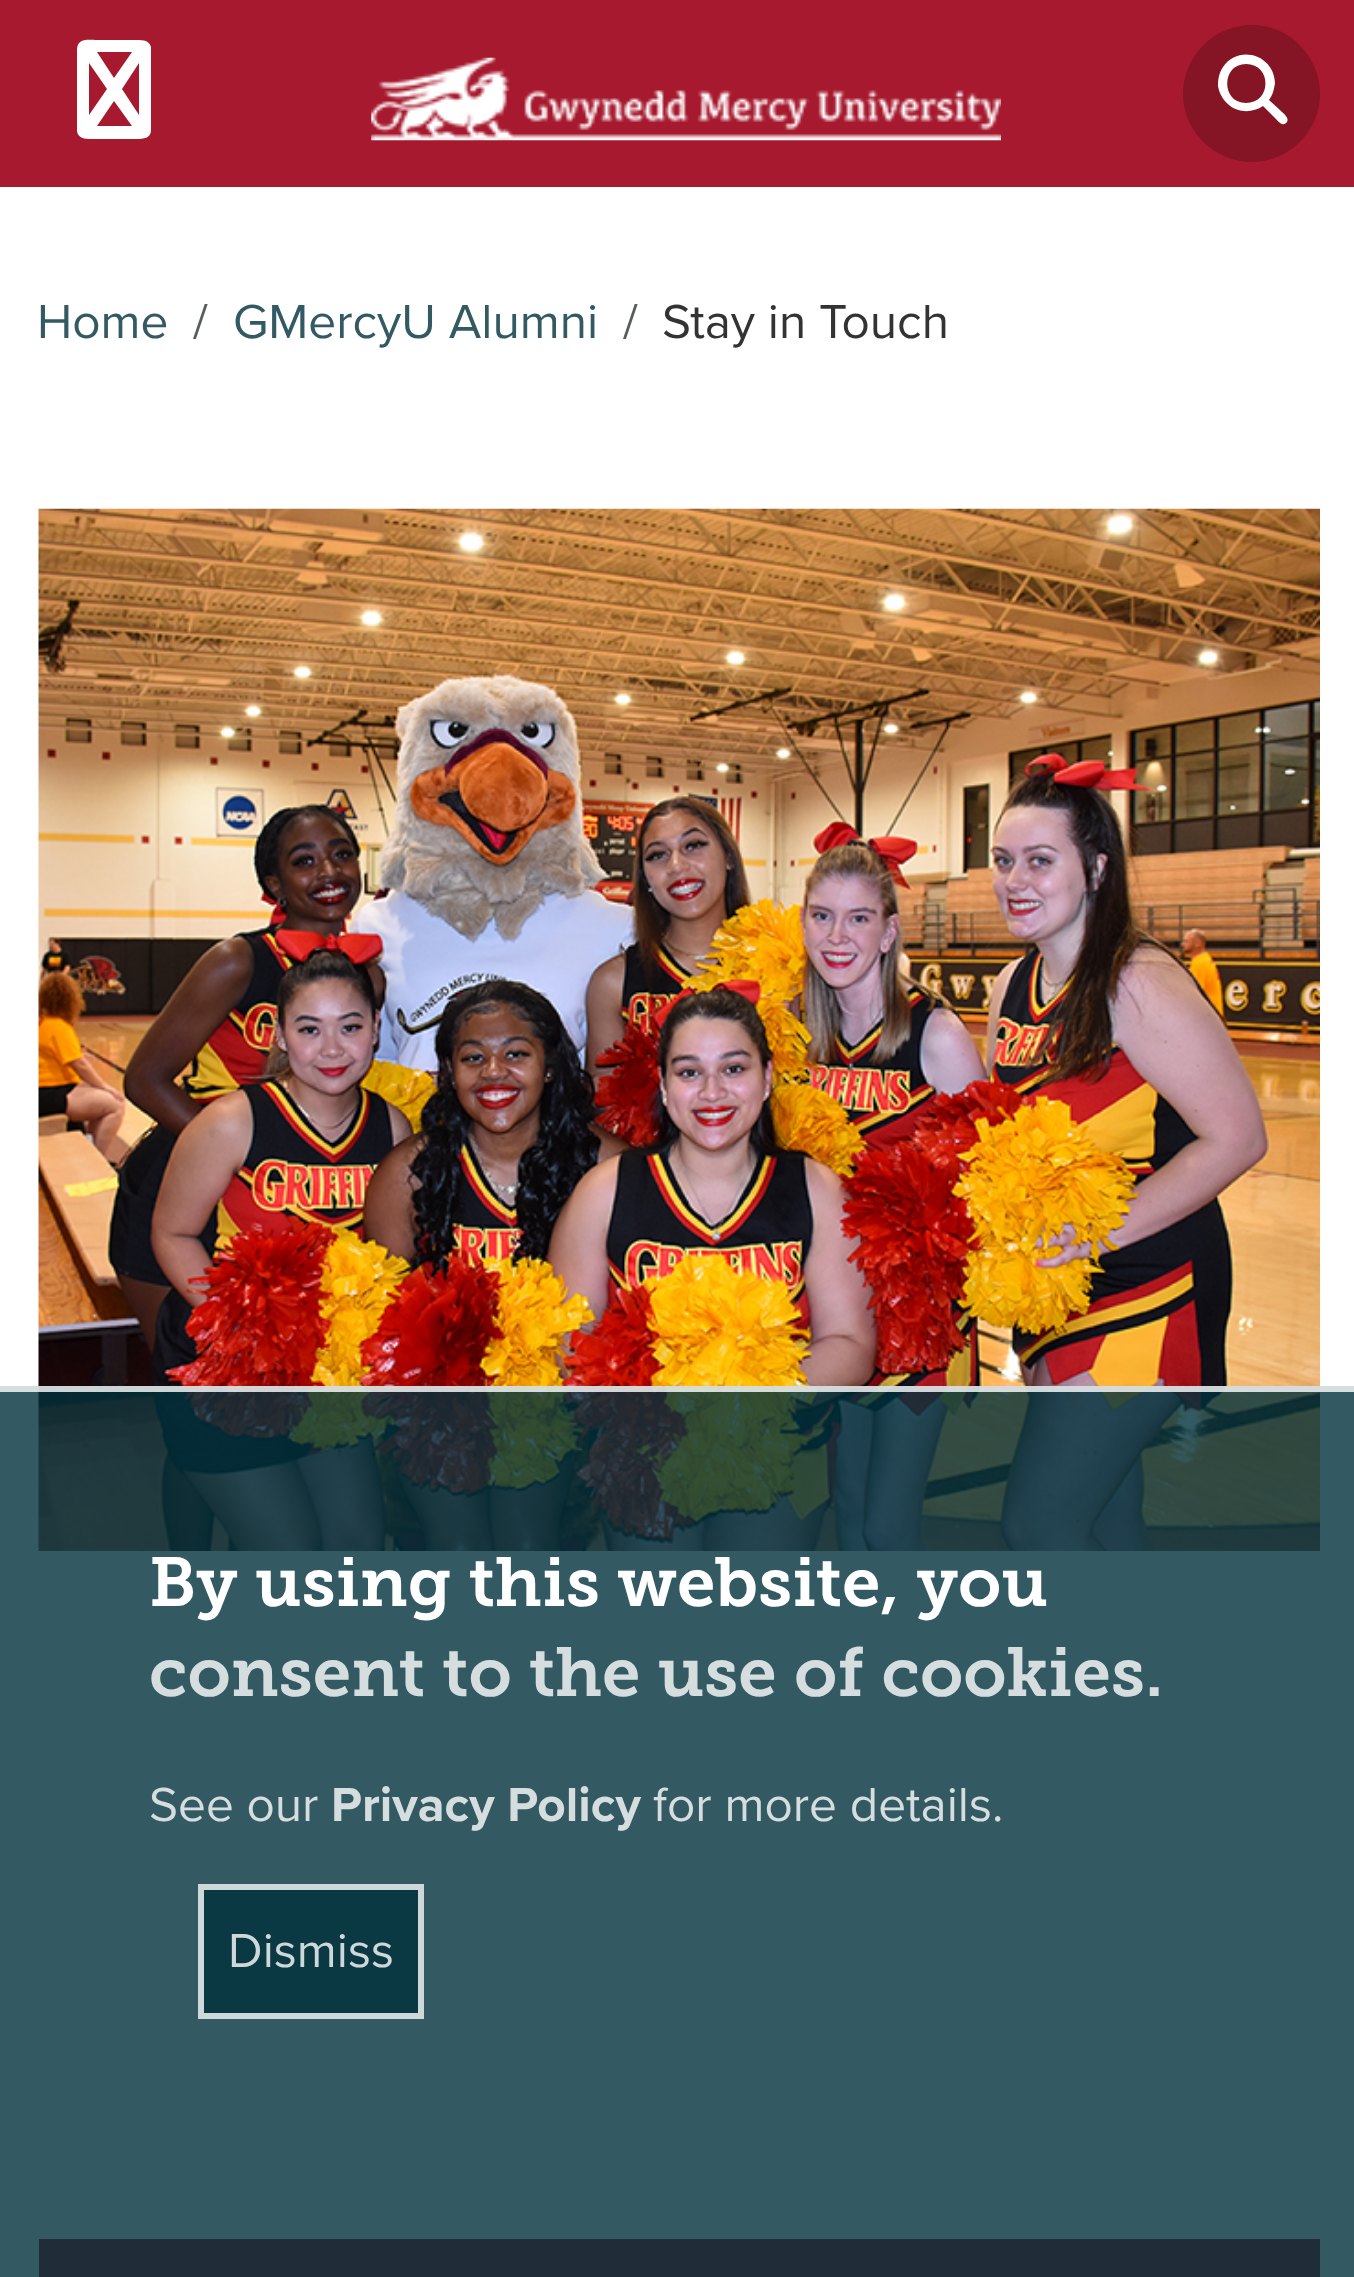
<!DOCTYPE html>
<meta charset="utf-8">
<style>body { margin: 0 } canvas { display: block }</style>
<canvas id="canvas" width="1354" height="2277"></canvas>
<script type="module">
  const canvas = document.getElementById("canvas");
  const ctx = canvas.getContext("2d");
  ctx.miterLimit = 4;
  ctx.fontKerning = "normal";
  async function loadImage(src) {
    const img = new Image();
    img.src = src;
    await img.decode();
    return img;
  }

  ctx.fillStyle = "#ffffff";
  ctx.fillRect(0, 0, 1354, 2277);
  ctx.fillStyle = "#a6192e";
  ctx.fillRect(0, 0, 1354, 187);
  ctx.fillStyle = "#ffffff";
  ctx.beginPath();
  ctx.moveTo(89, 115);
  ctx.lineTo(107, 89);
  ctx.lineTo(89, 115);
  ctx.lineTo(107, 89);
  ctx.lineTo(89, 63);
  ctx.closePath();
  ctx.moveTo(97, 126);
  ctx.lineTo(132, 126);
  ctx.lineTo(97, 126);
  ctx.lineTo(132, 126);
  ctx.lineTo(114, 101);
  ctx.closePath();
  ctx.moveTo(122, 89);
  ctx.lineTo(139, 115);
  ctx.lineTo(122, 89);
  ctx.lineTo(139, 115);
  ctx.lineTo(139, 63);
  ctx.closePath();
  ctx.moveTo(132, 52);
  ctx.lineTo(97, 52);
  ctx.lineTo(132, 52);
  ctx.lineTo(97, 52);
  ctx.lineTo(114, 78);
  ctx.closePath();
  ctx.moveTo(77, 49);
  ctx.bezierCurveTo(78, 38, 88, 40, 96, 40);
  ctx.lineTo(133, 40);
  ctx.bezierCurveTo(140, 40, 149, 39, 151, 47);
  ctx.lineTo(151, 130);
  ctx.bezierCurveTo(151, 140, 140, 139, 133, 139);
  ctx.lineTo(96, 139);
  ctx.bezierCurveTo(88, 139, 78, 140, 77, 131);
  ctx.closePath();
  ctx.fill();
  ctx.drawImage(await loadImage("img1.png"), 371, 57, 630, 84);
  ctx.fillStyle = "#851425";
  ctx.beginPath();
  ctx.moveTo(1252, 25);
  ctx.bezierCurveTo(1214, 25, 1183, 56, 1183, 94);
  ctx.bezierCurveTo(1183, 131, 1214, 162, 1252, 162);
  ctx.bezierCurveTo(1289, 162, 1320, 131, 1320, 94);
  ctx.bezierCurveTo(1320, 56, 1289, 25, 1252, 25);
  ctx.closePath();
  ctx.fill();
  ctx.fillStyle = "#ffffff";
  ctx.beginPath();
  ctx.moveTo(1275, 83);
  ctx.bezierCurveTo(1274, 89, 1273, 95, 1269, 100);
  ctx.lineTo(1281, 111);
  ctx.bezierCurveTo(1283, 113, 1291, 119, 1286, 123);
  ctx.bezierCurveTo(1282, 127, 1277, 120, 1274, 117);
  ctx.lineTo(1263, 106);
  ctx.bezierCurveTo(1253, 113, 1238, 113, 1229, 105);
  ctx.bezierCurveTo(1223, 100, 1219, 93, 1218, 86);
  ctx.bezierCurveTo(1218, 79, 1219, 73, 1223, 67);
  ctx.bezierCurveTo(1239, 44, 1274, 55, 1275, 83);
  ctx.closePath();
  ctx.moveTo(1246, 103);
  ctx.bezierCurveTo(1272, 103, 1272, 64, 1246, 64);
  ctx.bezierCurveTo(1221, 64, 1221, 103, 1246, 103);
  ctx.closePath();
  ctx.fill();
  ctx.font = "49.5px Proxima Nova";
  ctx.fillStyle = "#335a63";
  ctx.fillText("Home", 37, 338);
  ctx.fillStyle = "#595c5f";
  ctx.fillText("/", 193, 338);
  ctx.fillStyle = "#335a63";
  ctx.fillText("GMercyU Alumni", 233, 338);
  ctx.fillStyle = "#595c5f";
  ctx.fillText("/", 623, 338);
  ctx.fillStyle = "#333333";
  ctx.fillText("Stay in Touch", 662, 338);
  ctx.drawImage(await loadImage("img2.png"), 38, 508, 1282, 1043);
  ctx.fillStyle = "#a6192e";
  ctx.fillRect(39, 2239, 1281, 38);
  ctx.fillStyle = "rgba(0, 49, 60, 0.8)";
  ctx.fillRect(0, 1386, 1354, 891);
  ctx.fillStyle = "rgba(255, 255, 255, 0.8)";
  ctx.fillRect(0, 1386, 1354, 6);
  ctx.font = "600 68.9px 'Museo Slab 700'";
  ctx.fillStyle = "#ffffff";
  ctx.fillText("By using this website, you", 149, 1606);
  ctx.fillStyle = "#d6dddf";
  ctx.fillText("consent to the use of cookies.", 149, 1696);
  ctx.font = "49.5px Proxima Nova";
  ctx.fillText("See our", 149, 1821);
  ctx.font = "bold 49.5px Proxima Nova";
  ctx.fillText("Privacy Policy", 331, 1821);
  ctx.font = "49.5px Proxima Nova";
  ctx.fillText("for more details.", 653, 1821);
  ctx.fillStyle = "rgba(0, 49, 60, 0.8)";
  ctx.fillRect(198, 1884, 226, 135);
  ctx.strokeStyle = "rgba(255, 255, 255, 0.8)";
  ctx.lineWidth = 6;
  ctx.strokeRect(201, 1887, 220, 129);
  ctx.fillStyle = "#ced7d9";
  ctx.fillText("Dismiss", 228, 1967);
</script>
